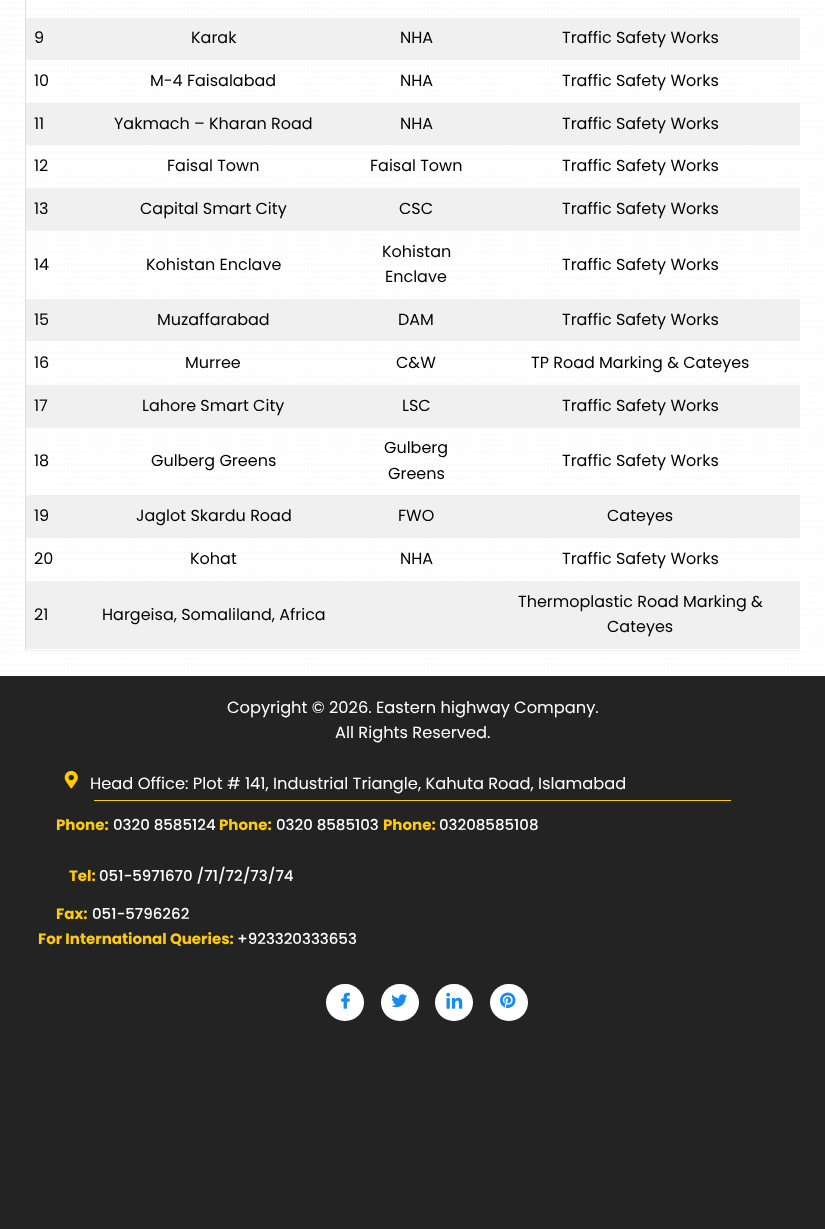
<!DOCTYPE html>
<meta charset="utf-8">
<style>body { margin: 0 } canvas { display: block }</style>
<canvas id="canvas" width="825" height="1229"></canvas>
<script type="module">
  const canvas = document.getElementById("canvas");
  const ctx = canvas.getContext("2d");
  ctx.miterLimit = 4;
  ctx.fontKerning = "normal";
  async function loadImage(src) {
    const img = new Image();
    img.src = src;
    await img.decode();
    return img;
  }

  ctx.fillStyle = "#ffffff";
  ctx.fillRect(0, 0, 825, 1229);
  ctx.drawImage(await loadImage("img1.png"), 0, 2, 823, 674);
  ctx.fillStyle = "#f0f0f0";
  ctx.fillRect(25, 650, 775, 1);
  ctx.fillStyle = "#dddddd";
  ctx.fillRect(25, 0, 1, 650);
  ctx.fillStyle = "#f0f0f0";
  ctx.fillRect(26, 18, 774, 42);
  ctx.font = "16px Poppins";
  ctx.fillStyle = "#000000";
  ctx.fillText("9", 34, 43);
  ctx.fillText("Karak", 191, 43);
  ctx.fillText("NHA", 400, 43);
  ctx.fillText("Traffic Safety Works", 562, 43);
  ctx.fillText("10", 34, 86);
  ctx.fillText("M-4 Faisalabad", 150, 86);
  ctx.fillText("NHA", 400, 86);
  ctx.fillText("Traffic Safety Works", 562, 86);
  ctx.fillStyle = "#f0f0f0";
  ctx.fillRect(26, 103, 774, 42);
  ctx.fillStyle = "#000000";
  ctx.fillText("11", 34, 129);
  ctx.fillText("Yakmach – Kharan Road", 114, 129);
  ctx.fillText("NHA", 400, 129);
  ctx.fillText("Traffic Safety Works", 562, 129);
  ctx.fillText("12", 34, 171);
  ctx.fillText("Faisal Town", 167, 171);
  ctx.fillText("Faisal Town", 370, 171);
  ctx.fillText("Traffic Safety Works", 562, 171);
  ctx.fillStyle = "#f0f0f0";
  ctx.fillRect(26, 188, 774, 43);
  ctx.fillStyle = "#000000";
  ctx.fillText("13", 34, 214);
  ctx.fillText("Capital Smart City", 140, 214);
  ctx.fillText("CSC", 399, 214);
  ctx.fillText("Traffic Safety Works", 562, 214);
  ctx.fillText("14", 34, 270);
  ctx.fillText("Kohistan Enclave", 146, 270);
  ctx.fillText("Kohistan", 382, 257);
  ctx.fillText("Enclave", 385, 282);
  ctx.fillText("Traffic Safety Works", 562, 270);
  ctx.fillStyle = "#f0f0f0";
  ctx.fillRect(26, 299, 774, 42);
  ctx.fillStyle = "#000000";
  ctx.fillText("15", 34, 325);
  ctx.fillText("Muzaffarabad", 157, 325);
  ctx.fillText("DAM", 398, 325);
  ctx.fillText("Traffic Safety Works", 562, 325);
  ctx.fillText("16", 34, 368);
  ctx.fillText("Murree", 185, 368);
  ctx.fillText("C&W", 396, 368);
  ctx.fillText("TP Road Marking & Cateyes", 531, 368);
  ctx.fillStyle = "#f0f0f0";
  ctx.fillRect(26, 385, 774, 43);
  ctx.fillStyle = "#000000";
  ctx.fillText("17", 34, 411);
  ctx.fillText("Lahore Smart City", 142, 411);
  ctx.fillText("LSC", 402, 411);
  ctx.fillText("Traffic Safety Works", 562, 411);
  ctx.fillText("18", 34, 466);
  ctx.fillText("Gulberg Greens", 151, 466);
  ctx.fillText("Gulberg", 384, 453);
  ctx.fillText("Greens", 388, 479);
  ctx.fillText("Traffic Safety Works", 562, 466);
  ctx.fillStyle = "#f0f0f0";
  ctx.fillRect(26, 495, 774, 43);
  ctx.fillStyle = "#000000";
  ctx.fillText("19", 34, 521);
  ctx.fillText("Jaglot Skardu Road", 136, 521);
  ctx.fillText("FWO", 398, 521);
  ctx.fillText("Cateyes", 607, 521);
  ctx.fillText("20", 34, 564);
  ctx.fillText("Kohat", 190, 564);
  ctx.fillText("NHA", 400, 564);
  ctx.fillText("Traffic Safety Works", 562, 564);
  ctx.fillStyle = "#f0f0f0";
  ctx.fillRect(26, 581, 774, 68);
  ctx.fillStyle = "#000000";
  ctx.fillText("21", 34, 620);
  ctx.fillText("Hargeisa, Somaliland, Africa", 102, 620);
  ctx.fillText("Thermoplastic Road Marking &", 518, 607);
  ctx.fillText("Cateyes", 607, 632);
  ctx.fillStyle = "#232323";
  ctx.fillRect(0, 676, 825, 553);
  ctx.font = "16.25px Poppins";
  ctx.fillStyle = "#ffffff";
  ctx.fillText("Copyright © 2026. Eastern highway Company.", 227, 713);
  ctx.fillText("All Rights Reserved.", 335, 738);
  ctx.drawImage(await loadImage("img2.png"), 64, 770, 14, 19);
  ctx.fillText("Head Office: Plot # 141, Industrial Triangle, Kahuta Road, Islamabad", 90, 789);
  ctx.fillStyle = "#fecb09";
  ctx.fillRect(94, 800, 637, 1);
  ctx.font = "bold 15px Poppins";
  ctx.fillText("Phone:", 56, 830);
  ctx.font = "500 15px Poppins";
  ctx.fillStyle = "#ffffff";
  ctx.fillText("0320 8585124", 113, 830);
  ctx.font = "bold 15px Poppins";
  ctx.fillStyle = "#fecb09";
  ctx.fillText("Phone:", 219, 830);
  ctx.font = "500 15px Poppins";
  ctx.fillStyle = "#ffffff";
  ctx.fillText("0320 8585103", 276, 830);
  ctx.font = "bold 15px Poppins";
  ctx.fillStyle = "#fecb09";
  ctx.fillText("Phone:", 383, 830);
  ctx.font = "500 15px Poppins";
  ctx.fillStyle = "#ffffff";
  ctx.fillText("03208585108", 439, 830);
  ctx.font = "bold 15px Poppins";
  ctx.fillStyle = "#fecb09";
  ctx.fillText("Tel:", 69, 881);
  ctx.font = "500 15px Poppins";
  ctx.fillStyle = "#ffffff";
  ctx.fillText("051-5971670 /71/72/73/74", 99, 881);
  ctx.font = "bold 15px Poppins";
  ctx.fillStyle = "#fecb09";
  ctx.fillText("Fax:", 56, 919);
  ctx.font = "500 15px Poppins";
  ctx.fillStyle = "#ffffff";
  ctx.fillText("051-5796262", 92, 919);
  ctx.font = "bold 15px Poppins";
  ctx.fillStyle = "#fecb09";
  ctx.fillText("For International Queries:", 38, 944);
  ctx.font = "500 15px Poppins";
  ctx.fillStyle = "#ffffff";
  ctx.fillText("+923320333653", 237, 944);
  ctx.beginPath();
  ctx.roundRect(326, 984, 38, 37, 18.5);
  ctx.fill();
  ctx.drawImage(await loadImage("img3.png"), 341, 992, 9, 17);
  ctx.beginPath();
  ctx.roundRect(381, 984, 38, 37, 18.5);
  ctx.fill();
  ctx.drawImage(await loadImage("img4.png"), 391, 994, 16, 14);
  ctx.beginPath();
  ctx.roundRect(435, 984, 38, 37, 18.5);
  ctx.fill();
  ctx.drawImage(await loadImage("img5.png"), 446, 992, 17, 17);
  ctx.beginPath();
  ctx.roundRect(490, 984, 38, 37, 18.5);
  ctx.fill();
  ctx.drawImage(await loadImage("img6.png"), 500, 992, 16, 16);
</script>
